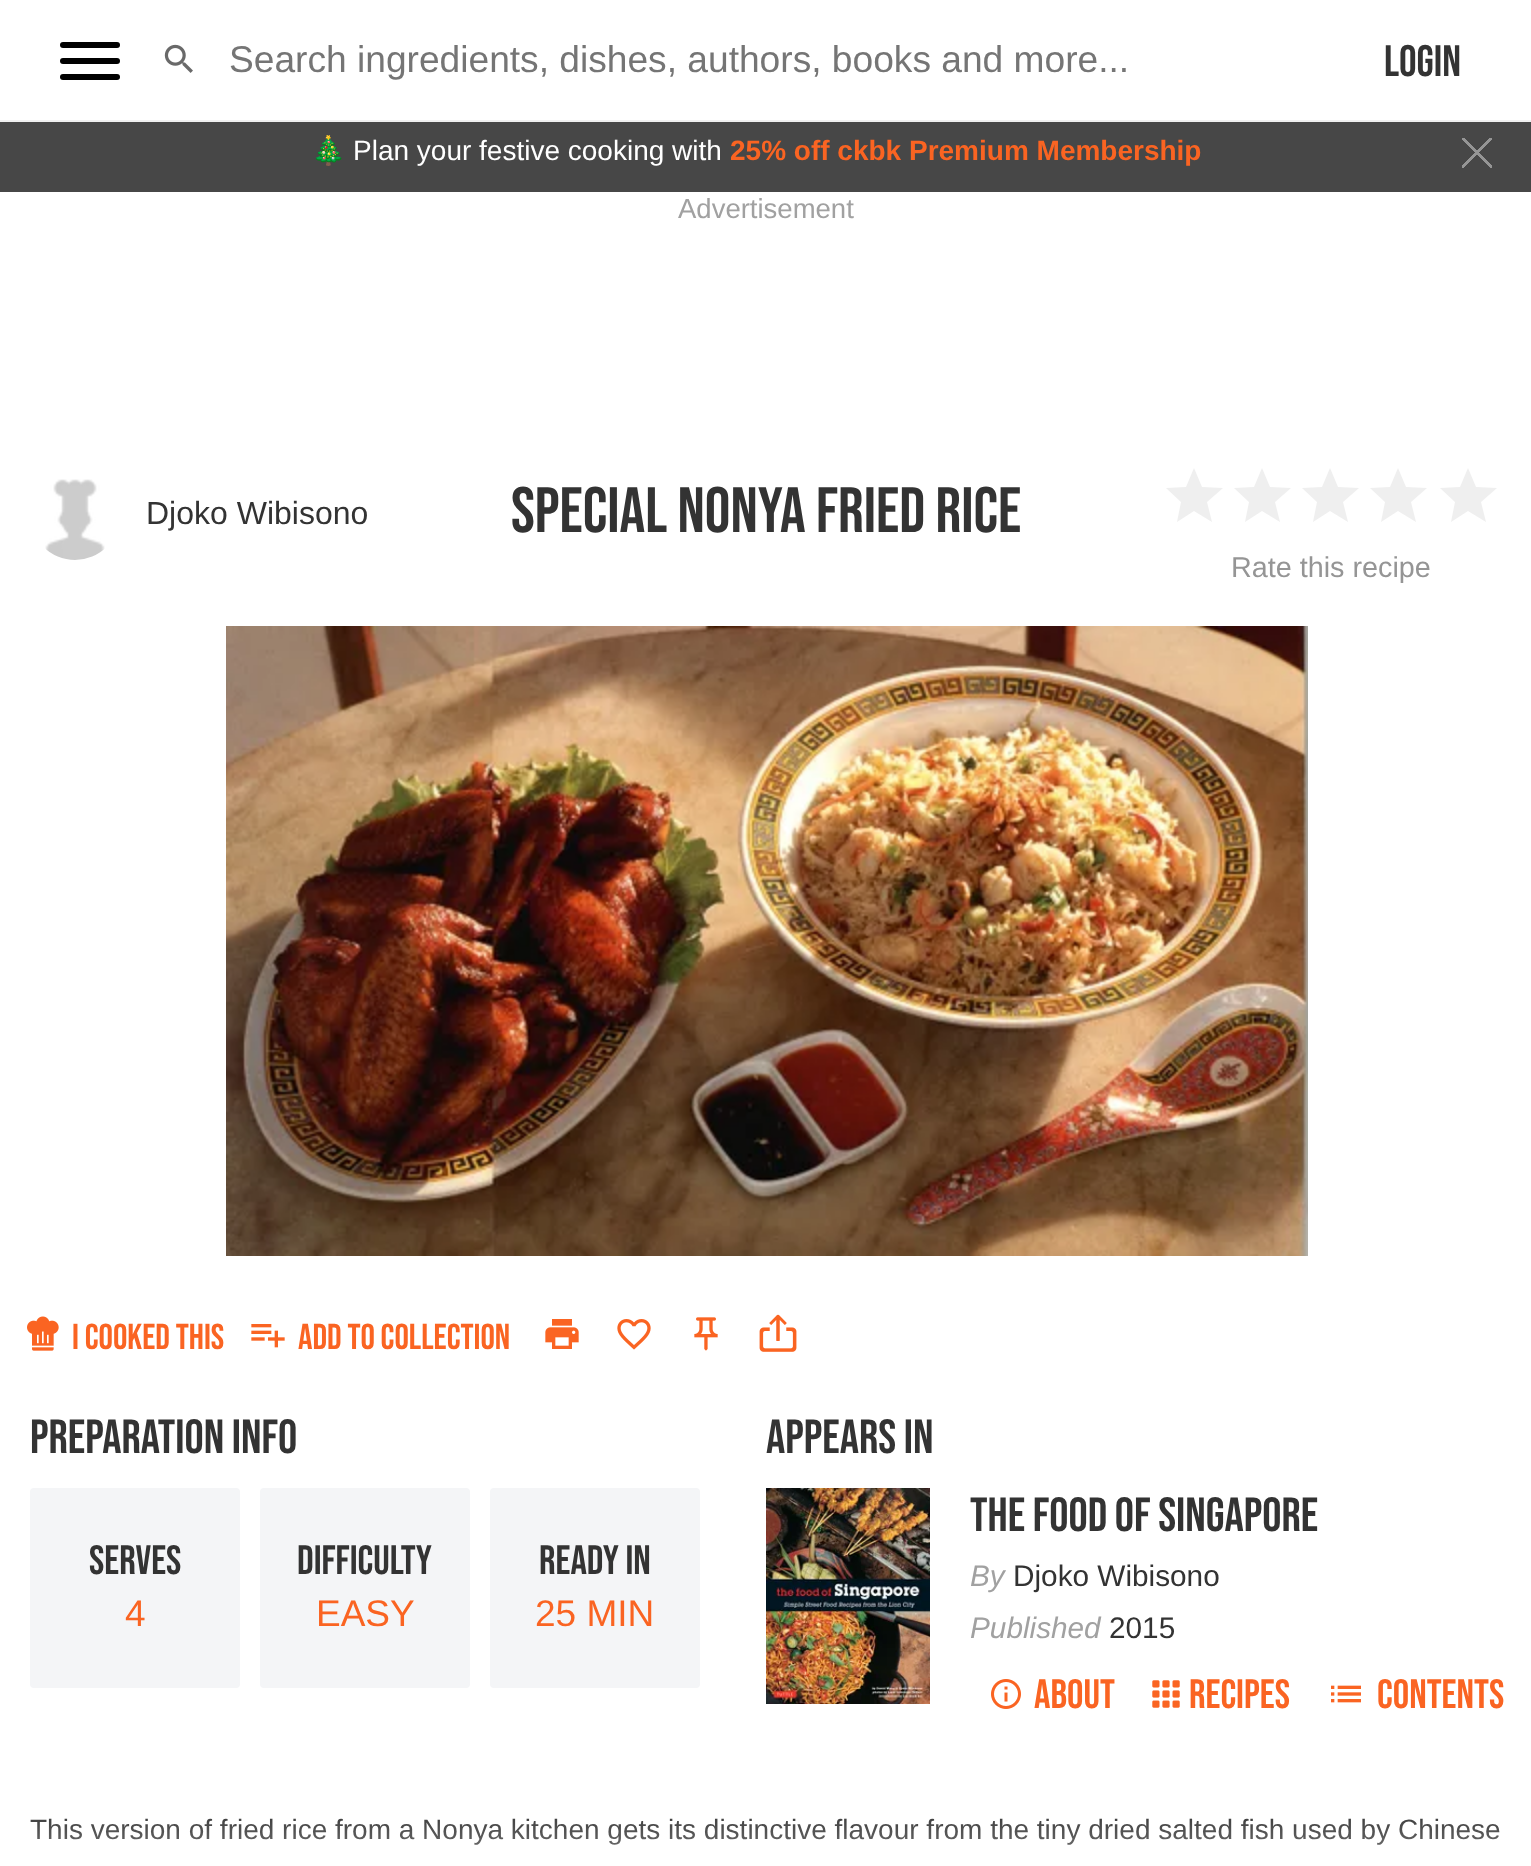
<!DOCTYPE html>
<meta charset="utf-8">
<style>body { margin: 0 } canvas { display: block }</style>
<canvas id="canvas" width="1531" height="1866"></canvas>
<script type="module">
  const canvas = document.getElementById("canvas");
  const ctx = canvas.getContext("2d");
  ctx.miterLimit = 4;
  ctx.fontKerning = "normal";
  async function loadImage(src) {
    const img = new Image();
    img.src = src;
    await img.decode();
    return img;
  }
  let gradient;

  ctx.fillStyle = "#ffffff";
  ctx.fillRect(0, 0, 1531, 1866);
  ctx.fillStyle = "#f0f0f0";
  ctx.fillRect(0, 120, 1531, 2);
  ctx.fillStyle = "#000000";
  ctx.beginPath();
  ctx.roundRect(60, 58, 60, 6, 3);
  ctx.fill();
  ctx.beginPath();
  ctx.roundRect(60, 42, 60, 6, 3);
  ctx.fill();
  ctx.beginPath();
  ctx.roundRect(60, 74, 60, 6, 3);
  ctx.fill();
  ctx.drawImage(await loadImage("img1.png"), 164, 44, 29, 29);
  ctx.font = "37.15px Liberation Sans";
  ctx.fillStyle = "#757575";
  ctx.fillText("Search ingredients, dishes, authors, books and more...", 229, 72);
  ctx.font = "44px Bebas Neue";
  ctx.fillStyle = "#333333";
  ctx.fillText("Login", 1384, 76);
  ctx.fillStyle = "#474747";
  ctx.fillRect(0, 122, 1531, 70);
  ctx.font = "28px Noto Color Emoji";
  ctx.fillStyle = "#ffffff";
  ctx.fillText("🎄", 311, 160);
  ctx.font = "28px Liberation Sans";
  ctx.fillText("Plan your festive cooking with", 353, 160);
  ctx.font = "bold 28px Liberation Sans";
  ctx.fillStyle = "#fa6422";
  ctx.fillText("25% off ckbk Premium Membership", 730, 160);
  gradient = ctx.createLinearGradient(1462, 168, 1492, 138);
  gradient.addColorStop(0, "#474747");
  gradient.addColorStop(0.48, "#474747");
  gradient.addColorStop(0.48, "#959595");
  gradient.addColorStop(0.54, "#959595");
  gradient.addColorStop(0.54, "#474747");
  gradient.addColorStop(1, "#474747");
  ctx.fillStyle = gradient;
  ctx.fillRect(1462, 138, 30, 30);
  gradient = ctx.createLinearGradient(1492, 168, 1462, 138);
  gradient.addColorStop(0, "rgba(0, 0, 0, 0)");
  gradient.addColorStop(0.48, "rgba(149, 149, 149, 0)");
  gradient.addColorStop(0.48, "#959595");
  gradient.addColorStop(0.54, "#959595");
  gradient.addColorStop(0.54, "rgba(149, 149, 149, 0)");
  gradient.addColorStop(1, "rgba(0, 0, 0, 0)");
  ctx.fillStyle = gradient;
  ctx.fillRect(1462, 138, 30, 30);
  ctx.font = "27.5px Liberation Sans";
  ctx.fillStyle = "#a1a1a1";
  ctx.fillText("Advertisement", 678, 218);
  ctx.drawImage(await loadImage("img2.png"), 45, 479, 60, 81);
  ctx.font = "32px Liberation Sans";
  ctx.fillStyle = "#333333";
  ctx.fillText("Djoko Wibisono", 146, 524);
  ctx.font = "64px Bebas Neue";
  ctx.fillText("SPECIAL NONYA FRIED RICE", 511, 532);
  ctx.fillStyle = "#efefef";
  ctx.beginPath();
  ctx.moveTo(1194, 511);
  ctx.lineTo(1212, 522);
  ctx.lineTo(1207, 502);
  ctx.lineTo(1223, 488);
  ctx.lineTo(1202, 487);
  ctx.lineTo(1194, 468);
  ctx.lineTo(1186, 487);
  ctx.lineTo(1166, 488);
  ctx.lineTo(1181, 502);
  ctx.lineTo(1177, 522);
  ctx.closePath();
  ctx.fill();
  ctx.beginPath();
  ctx.moveTo(1262, 511);
  ctx.lineTo(1280, 522);
  ctx.lineTo(1275, 502);
  ctx.lineTo(1291, 488);
  ctx.lineTo(1270, 487);
  ctx.lineTo(1262, 468);
  ctx.lineTo(1254, 487);
  ctx.lineTo(1234, 488);
  ctx.lineTo(1249, 502);
  ctx.lineTo(1245, 522);
  ctx.closePath();
  ctx.fill();
  ctx.beginPath();
  ctx.moveTo(1330, 511);
  ctx.lineTo(1348, 522);
  ctx.lineTo(1343, 502);
  ctx.lineTo(1359, 488);
  ctx.lineTo(1338, 487);
  ctx.lineTo(1330, 468);
  ctx.lineTo(1322, 487);
  ctx.lineTo(1302, 488);
  ctx.lineTo(1317, 502);
  ctx.lineTo(1313, 522);
  ctx.closePath();
  ctx.fill();
  ctx.beginPath();
  ctx.moveTo(1398, 511);
  ctx.lineTo(1416, 522);
  ctx.lineTo(1411, 502);
  ctx.lineTo(1427, 488);
  ctx.lineTo(1406, 487);
  ctx.lineTo(1398, 468);
  ctx.lineTo(1390, 487);
  ctx.lineTo(1370, 488);
  ctx.lineTo(1385, 502);
  ctx.lineTo(1381, 522);
  ctx.closePath();
  ctx.fill();
  ctx.beginPath();
  ctx.moveTo(1468, 511);
  ctx.lineTo(1486, 522);
  ctx.lineTo(1481, 502);
  ctx.lineTo(1497, 488);
  ctx.lineTo(1476, 487);
  ctx.lineTo(1468, 468);
  ctx.lineTo(1460, 487);
  ctx.lineTo(1440, 488);
  ctx.lineTo(1455, 502);
  ctx.lineTo(1451, 522);
  ctx.closePath();
  ctx.fill();
  ctx.font = "28.75px Liberation Sans";
  ctx.fillStyle = "#959595";
  ctx.fillText("Rate this recipe", 1231, 577);
  ctx.drawImage(await loadImage("img3.png"), 226, 626, 1082, 630);
  ctx.drawImage(await loadImage("img4.png"), 27, 1316, 32, 35);
  ctx.font = "36px Bebas Neue";
  ctx.fillStyle = "#fa6422";
  ctx.fillText("I COOKED THIS", 72, 1349);
  ctx.drawImage(await loadImage("img5.png"), 251, 1324, 34, 24);
  ctx.fillText("ADD TO COLLECTION", 298, 1349);
  ctx.drawImage(await loadImage("img6.png"), 545, 1319, 34, 30);
  ctx.drawImage(await loadImage("img7.png"), 617, 1319, 34, 31);
  ctx.drawImage(await loadImage("img8.png"), 694, 1317, 24, 34);
  ctx.drawImage(await loadImage("img9.png"), 759, 1314, 38, 38);
  ctx.font = "48px Bebas Neue";
  ctx.fillStyle = "#333333";
  ctx.fillText("PREPARATION INFO", 30, 1453);
  ctx.fillStyle = "#f4f5f7";
  ctx.beginPath();
  ctx.roundRect(30, 1488, 210, 200, 4);
  ctx.fill();
  ctx.font = "41px Bebas Neue";
  ctx.fillStyle = "#333333";
  ctx.fillText("SERVES", 89, 1574);
  ctx.font = "37px Liberation Sans";
  ctx.fillStyle = "#fa6422";
  ctx.fillText("4", 125, 1626);
  ctx.fillStyle = "#f4f5f7";
  ctx.beginPath();
  ctx.roundRect(260, 1488, 210, 200, 4);
  ctx.fill();
  ctx.font = "41px Bebas Neue";
  ctx.fillStyle = "#333333";
  ctx.fillText("DIFFICULTY", 297, 1574);
  ctx.font = "37px Liberation Sans";
  ctx.fillStyle = "#fa6422";
  ctx.fillText("EASY", 316, 1626);
  ctx.fillStyle = "#f4f5f7";
  ctx.beginPath();
  ctx.roundRect(490, 1488, 210, 200, 4);
  ctx.fill();
  ctx.font = "41px Bebas Neue";
  ctx.fillStyle = "#333333";
  ctx.fillText("READY IN", 539, 1574);
  ctx.font = "37px Liberation Sans";
  ctx.fillStyle = "#fa6422";
  ctx.fillText("25 MIN", 535, 1626);
  ctx.font = "48px Bebas Neue";
  ctx.fillStyle = "#333333";
  ctx.fillText("APPEARS IN", 766, 1453);
  ctx.drawImage(await loadImage("img10.png"), 766, 1488, 164, 216);
  ctx.fillText("THE FOOD OF SINGAPORE", 970, 1531);
  ctx.font = "italic 29.75px Liberation Sans";
  ctx.fillStyle = "#a1a1a1";
  ctx.fillText("By", 970, 1586);
  ctx.font = "29.75px Liberation Sans";
  ctx.fillStyle = "#333333";
  ctx.fillText("Djoko Wibisono", 1013, 1586);
  ctx.font = "italic 29.75px Liberation Sans";
  ctx.fillStyle = "#a1a1a1";
  ctx.fillText("Published", 970, 1638);
  ctx.font = "29.75px Liberation Sans";
  ctx.fillStyle = "#333333";
  ctx.fillText("2015", 1109, 1638);
  ctx.drawImage(await loadImage("img11.png"), 991, 1679, 30, 30);
  ctx.font = "41px Bebas Neue";
  ctx.fillStyle = "#fa6422";
  ctx.fillText("ABOUT", 1034, 1708);
  ctx.drawImage(await loadImage("img12.png"), 1152, 1680, 28, 28);
  ctx.fillText("RECIPES", 1189, 1708);
  ctx.drawImage(await loadImage("img13.png"), 1331, 1685, 30, 18);
  ctx.fillText("CONTENTS", 1377, 1708);
  ctx.font = "28px Liberation Sans";
  ctx.fillStyle = "#333333";
  ctx.fillText("This version of fried rice from a Nonya kitchen gets its distinctive flavour from the tiny dried salted fish used by Chinese", 30, 1839);
  gradient = ctx.createLinearGradient(766, 1808, 766, 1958);
  gradient.addColorStop(0, "rgba(255, 255, 255, 0)");
  gradient.addColorStop(1, "#ffffff");
  ctx.fillStyle = gradient;
  ctx.fillRect(30, 1818, 1470, 27);
</script>
